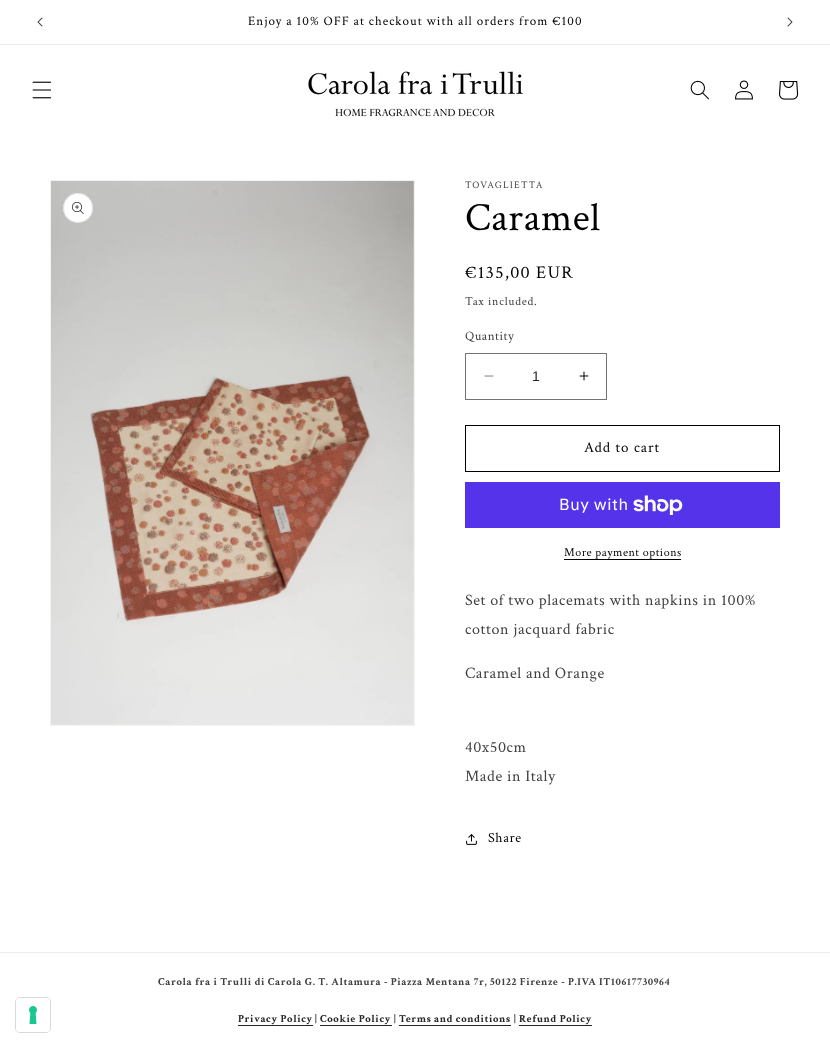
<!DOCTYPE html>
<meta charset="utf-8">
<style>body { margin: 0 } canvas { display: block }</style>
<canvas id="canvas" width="830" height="1048"></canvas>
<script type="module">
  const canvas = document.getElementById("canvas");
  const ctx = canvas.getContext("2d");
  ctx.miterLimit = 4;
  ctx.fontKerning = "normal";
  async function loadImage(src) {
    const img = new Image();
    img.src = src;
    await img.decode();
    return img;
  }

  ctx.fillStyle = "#ffffff";
  ctx.fillRect(0, 0, 830, 1048);
  ctx.fillStyle = "#ebebeb";
  ctx.fillRect(0, 44, 830, 1);
  ctx.drawImage(await loadImage("img1.png"), 37, 17, 6, 10);
  ctx.letterSpacing = "1px";
  ctx.font = "13px Crimson Text";
  ctx.fillStyle = "#000000";
  ctx.fillText("Enjoy a 10% OFF at checkout with all orders from €100", 248, 25);
  ctx.drawImage(await loadImage("img2.png"), 787, 17, 6, 10);
  ctx.drawImage(await loadImage("img3.png"), 32, 81, 20, 18);
  ctx.drawImage(await loadImage("img4.png"), 308, 71, 216, 46);
  ctx.drawImage(await loadImage("img5.png"), 690, 80, 19, 20);
  ctx.drawImage(await loadImage("img6.png"), 735, 80, 18, 20);
  ctx.drawImage(await loadImage("img7.png"), 779, 81, 20, 19);
  ctx.strokeStyle = "#f2f2f2";
  ctx.strokeRect(50.5, 180.5, 364, 545);
  ctx.drawImage(await loadImage("img8.png"), 51, 181, 363, 544);
  ctx.fillStyle = "#ffffff";
  ctx.beginPath();
  ctx.arc(78, 208, 15, 0, Math.PI * 2);
  ctx.fill();
  ctx.beginPath();
  ctx.arc(78, 208, 14.5, 0, Math.PI * 2);
  ctx.strokeStyle = "rgba(0, 0, 0, 0.1)";
  ctx.stroke();
  ctx.drawImage(await loadImage("img9.png"), 72, 202, 12, 12);
  ctx.letterSpacing = "1.25px";
  ctx.font = "10px Crimson Text";
  ctx.fillStyle = "#404040";
  ctx.fillText("TOVAGLIETTA", 465, 188);
  ctx.letterSpacing = "0.6px";
  ctx.font = "40px Crimson Text";
  ctx.fillStyle = "#000000";
  ctx.fillText("Caramel", 465, 230);
  ctx.letterSpacing = "1.25px";
  ctx.font = "18px Crimson Text";
  ctx.fillText("€135,00 EUR", 465, 278);
  ctx.letterSpacing = "0.75px";
  ctx.font = "12px Crimson Text";
  ctx.fillStyle = "#404040";
  ctx.fillText("Tax included.", 465, 305);
  ctx.letterSpacing = "0.5px";
  ctx.font = "13px Crimson Text";
  ctx.fillText("Quantity", 465, 340);
  ctx.drawImage(await loadImage("img10.png"), 484, 375, 10, 2);
  ctx.drawImage(await loadImage("img11.png"), 579, 371, 10, 10);
  ctx.strokeStyle = "#737373";
  ctx.strokeRect(465.5, 353.5, 141, 46);
  ctx.letterSpacing = "0px";
  ctx.font = "14px Liberation Sans";
  ctx.fillStyle = "#262626";
  ctx.fillText("1", 532, 381);
  ctx.strokeStyle = "#000000";
  ctx.strokeRect(465.5, 425.5, 314, 46);
  ctx.letterSpacing = "1px";
  ctx.font = "15px Crimson Text";
  ctx.fillStyle = "#000000";
  ctx.fillText("Add to cart", 584, 452);
  ctx.fillStyle = "#5433eb";
  ctx.fillRect(465, 482, 315, 46);
  ctx.letterSpacing = "0.6px";
  ctx.font = "16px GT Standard";
  ctx.fillStyle = "#ffffff";
  ctx.fillText("Buy with", 559, 510);
  ctx.drawImage(await loadImage("img12.png"), 633, 495, 50, 20);
  ctx.letterSpacing = "0.5px";
  ctx.font = "12px Crimson Text";
  ctx.fillStyle = "#000000";
  ctx.fillText("More payment options", 564, 556);
  ctx.fillRect(564, 559, 117, 1);
  ctx.letterSpacing = "0.6px";
  ctx.font = "16px Crimson Text";
  ctx.fillStyle = "#404040";
  ctx.fillText("Set of two placemats with napkins in 100%", 465, 605);
  ctx.fillText("cotton jacquard fabric", 465, 634);
  ctx.fillText("Caramel and Orange", 465, 678);
  ctx.fillText("40x50cm", 465, 752);
  ctx.fillText("Made in Italy", 465, 781);
  ctx.drawImage(await loadImage("img13.png"), 466, 834, 11, 11);
  ctx.font = "14px Crimson Text";
  ctx.fillStyle = "#000000";
  ctx.fillText("Share", 488, 842);
  ctx.beginPath();
  ctx.roundRect(15.5, 997.5, 35, 35, 4.5);
  ctx.strokeStyle = "#d9d9d9";
  ctx.stroke();
  ctx.fillStyle = "#ffffff";
  ctx.beginPath();
  ctx.roundRect(16, 998, 34, 34, 4);
  ctx.fill();
  ctx.drawImage(await loadImage("img14.png"), 29, 1006, 8, 18);
  ctx.fillStyle = "#ebebeb";
  ctx.fillRect(0, 952, 830, 1);
  ctx.font = "bold 10.7px Crimson Text";
  ctx.fillStyle = "#404040";
  ctx.fillText("Carola fra i Trulli di Carola G. T. Altamura - Piazza Mentana 7r, 50122 Firenze - P.IVA IT10617730964", 158, 985);
  ctx.fillStyle = "#262626";
  ctx.fillText("Privacy Policy", 238, 1022);
  ctx.fillRect(238, 1025, 75, 1);
  ctx.fillStyle = "#404040";
  ctx.fillText("|", 315, 1022);
  ctx.fillStyle = "#262626";
  ctx.fillText("Cookie Policy", 320, 1022);
  ctx.fillRect(320, 1025, 72, 1);
  ctx.fillStyle = "#404040";
  ctx.fillText("|", 394, 1022);
  ctx.fillStyle = "#262626";
  ctx.fillText("Terms and conditions", 399, 1022);
  ctx.fillRect(399, 1025, 112, 1);
  ctx.fillStyle = "#404040";
  ctx.fillText("|", 514, 1022);
  ctx.fillStyle = "#262626";
  ctx.fillText("Refund Policy", 519, 1022);
  ctx.fillRect(519, 1025, 73, 1);
</script>
